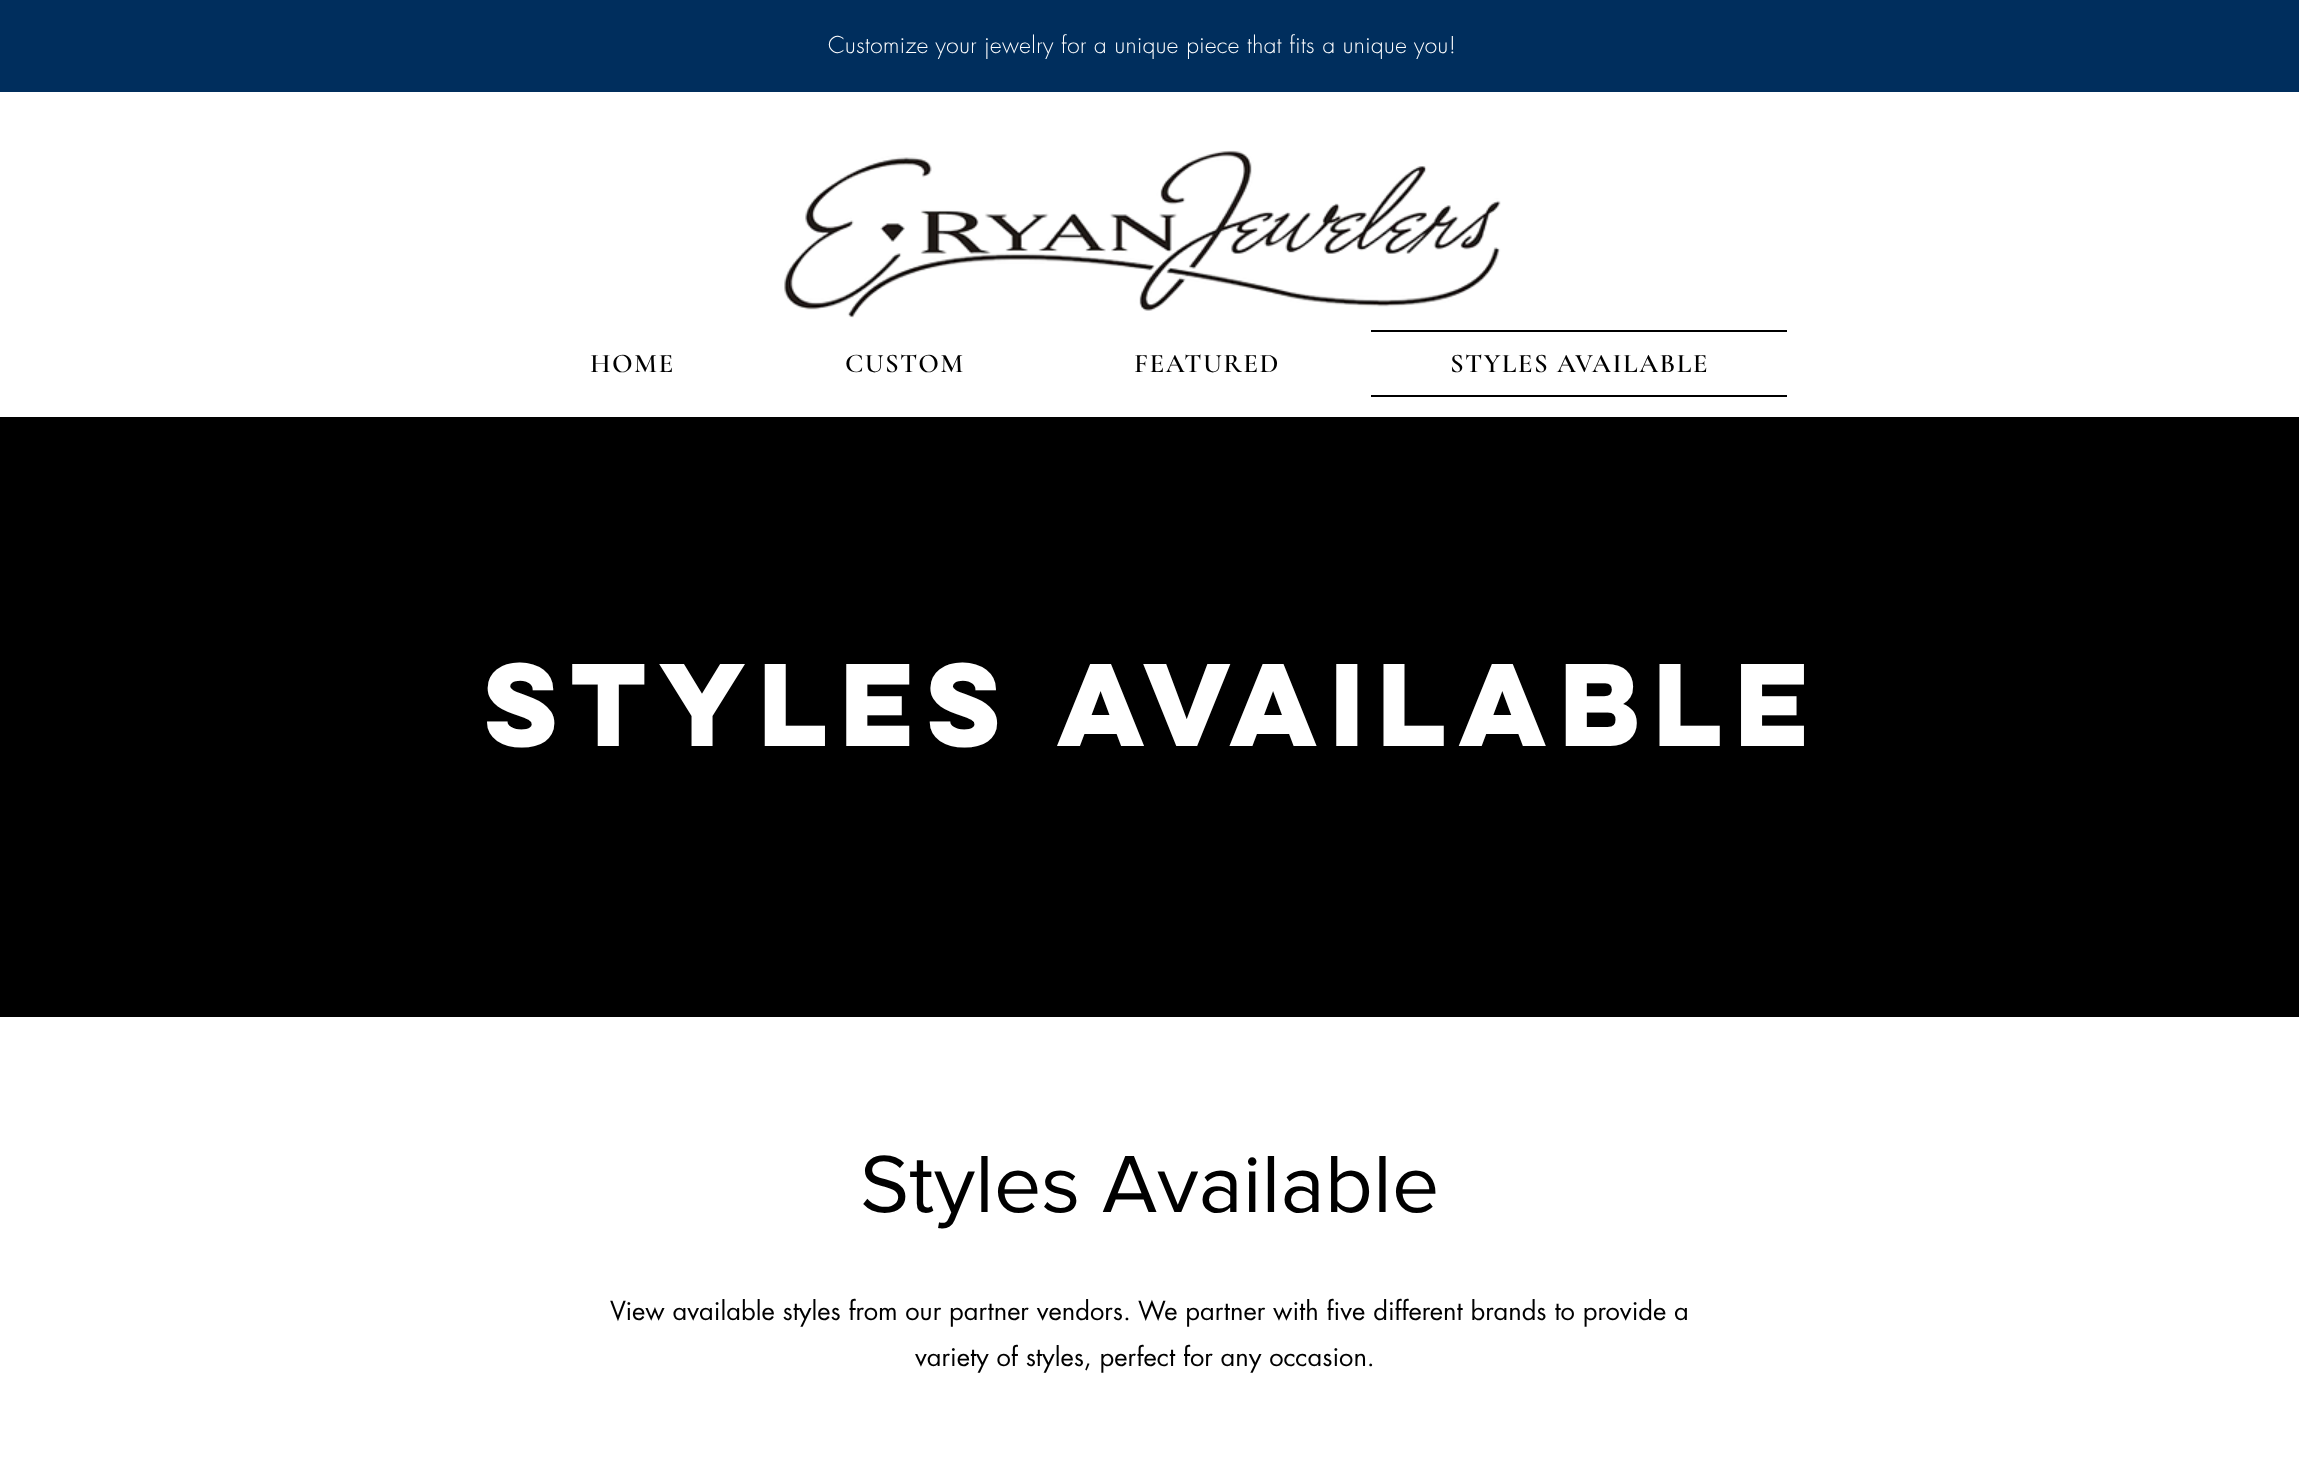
<!DOCTYPE html>
<meta charset="utf-8">
<style>body { margin: 0 } canvas { display: block }</style>
<canvas id="canvas" width="2299" height="1462"></canvas>
<script type="module">
  const canvas = document.getElementById("canvas");
  const ctx = canvas.getContext("2d");
  ctx.miterLimit = 4;
  ctx.fontKerning = "normal";
  async function loadImage(src) {
    const img = new Image();
    img.src = src;
    await img.decode();
    return img;
  }

  ctx.fillStyle = "#ffffff";
  ctx.fillRect(0, 0, 2299, 1462);
  ctx.fillStyle = "#002e5d";
  ctx.fillRect(0, 0, 2299, 92);
  ctx.letterSpacing = "0.45px";
  ctx.font = "300 22.5px futura";
  ctx.fillStyle = "#ffffff";
  ctx.fillText("Customize your jewelry for a unique piece that fits a unique you!", 828, 53);
  ctx.drawImage(await loadImage("img1.png"), 784, 150, 717, 168);
  ctx.letterSpacing = "1.4px";
  ctx.font = "600 27px Cormorant Garamond";
  ctx.fillStyle = "#000000";
  ctx.fillText("HOME", 590, 372);
  ctx.fillText("CUSTOM", 845, 372);
  ctx.fillText("FEATURED", 1134, 372);
  ctx.fillRect(1371, 330, 416, 2);
  ctx.fillRect(1371, 395, 416, 2);
  ctx.fillText("STYLES AVAILABLE", 1450, 372);
  ctx.fillRect(0, 417, 2299, 600);
  ctx.letterSpacing = "-10.5px";
  ctx.font = "bold 105px 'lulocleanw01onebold'";
  ctx.fillStyle = "#ffffff";
  ctx.fillText("styles available", 484, 746);
  ctx.letterSpacing = "0px";
  ctx.font = "84px 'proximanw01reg'";
  ctx.fillStyle = "#000000";
  ctx.fillText("Styles Available", 860, 1212);
  ctx.font = "25.5px futura";
  ctx.fillText("View available styles from our partner vendors. We partner with five different brands to provide a", 610, 1320);
  ctx.fillText("variety of styles, perfect for any occasion.", 915, 1366);
</script>
